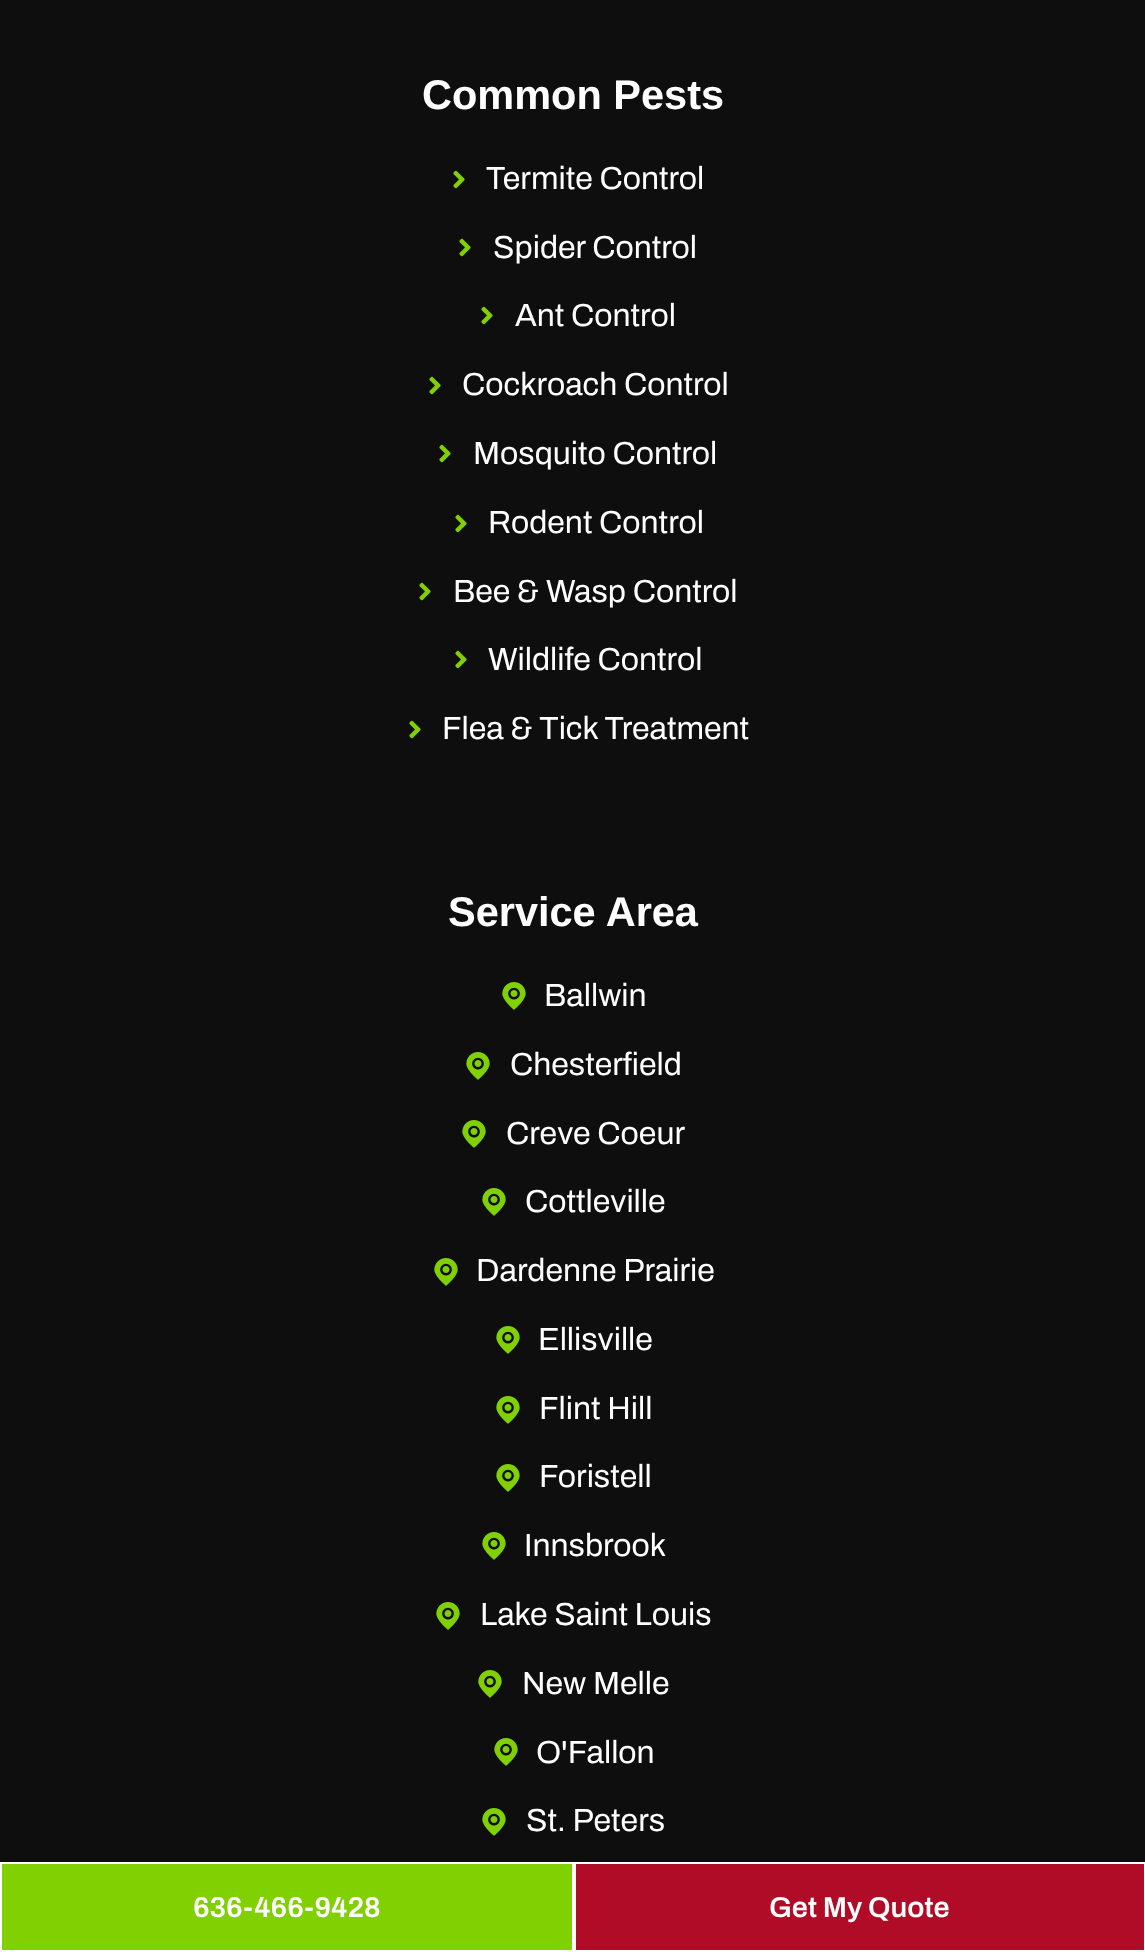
<!DOCTYPE html>
<meta charset="utf-8">
<style>body { margin: 0 } canvas { display: block }</style>
<canvas id="canvas" width="1145" height="1952"></canvas>
<script type="module">
  const canvas = document.getElementById("canvas");
  const ctx = canvas.getContext("2d");
  ctx.miterLimit = 4;
  ctx.fontKerning = "normal";
  async function loadImage(src) {
    const img = new Image();
    img.src = src;
    await img.decode();
    return img;
  }

  ctx.fillStyle = "#0e0e0e";
  ctx.fillRect(0, 0, 1145, 1952);
  ctx.font = "bold 41.5px Liberation Sans";
  ctx.fillStyle = "#ffffff";
  ctx.fillText("Common Pests", 422, 109);
  ctx.drawImage(await loadImage("img1.png"), 453, 170, 12, 19);
  ctx.font = "32px Archivo";
  ctx.fillText("Termite Control", 486, 189);
  ctx.drawImage(await loadImage("img1.png"), 459, 238, 12, 19);
  ctx.fillText("Spider Control", 493, 258);
  ctx.drawImage(await loadImage("img1.png"), 481, 306, 12, 19);
  ctx.fillText("Ant Control", 515, 326);
  ctx.drawImage(await loadImage("img1.png"), 429, 376, 12, 19);
  ctx.fillText("Cockroach Control", 462, 395);
  ctx.drawImage(await loadImage("img1.png"), 439, 444, 12, 19);
  ctx.fillText("Mosquito Control", 473, 464);
  ctx.drawImage(await loadImage("img1.png"), 455, 514, 12, 19);
  ctx.fillText("Rodent Control", 488, 533);
  ctx.drawImage(await loadImage("img1.png"), 419, 582, 12, 19);
  ctx.fillText("Bee & Wasp Control", 453, 602);
  ctx.drawImage(await loadImage("img1.png"), 455, 650, 12, 19);
  ctx.fillText("Wildlife Control", 488, 670);
  ctx.drawImage(await loadImage("img1.png"), 409, 720, 12, 19);
  ctx.fillText("Flea & Tick Treatment", 442, 739);
  ctx.font = "bold 41.5px Liberation Sans";
  ctx.fillText("Service Area", 448, 926);
  ctx.drawImage(await loadImage("img2.png"), 502, 982, 24, 28);
  ctx.font = "32px Archivo";
  ctx.fillText("Ballwin", 544, 1006);
  ctx.drawImage(await loadImage("img2.png"), 466, 1052, 24, 28);
  ctx.fillText("Chesterfield", 510, 1075);
  ctx.drawImage(await loadImage("img2.png"), 462, 1120, 24, 28);
  ctx.fillText("Creve Coeur", 506, 1144);
  ctx.drawImage(await loadImage("img2.png"), 482, 1188, 24, 28);
  ctx.fillText("Cottleville", 525, 1212);
  ctx.drawImage(await loadImage("img2.png"), 434, 1258, 24, 28);
  ctx.fillText("Dardenne Prairie", 476, 1281);
  ctx.drawImage(await loadImage("img2.png"), 496, 1326, 24, 28);
  ctx.fillText("Ellisville", 538, 1350);
  ctx.drawImage(await loadImage("img2.png"), 496, 1396, 24, 28);
  ctx.fillText("Flint Hill", 539, 1419);
  ctx.drawImage(await loadImage("img2.png"), 496, 1464, 24, 28);
  ctx.fillText("Foristell", 539, 1487);
  ctx.drawImage(await loadImage("img2.png"), 482, 1532, 24, 28);
  ctx.fillText("Innsbrook", 524, 1556);
  ctx.drawImage(await loadImage("img2.png"), 436, 1602, 24, 28);
  ctx.fillText("Lake Saint Louis", 480, 1625);
  ctx.drawImage(await loadImage("img2.png"), 478, 1670, 24, 28);
  ctx.fillText("New Melle", 522, 1694);
  ctx.drawImage(await loadImage("img2.png"), 494, 1738, 24, 28);
  ctx.fillText("O'Fallon", 536, 1763);
  ctx.drawImage(await loadImage("img2.png"), 482, 1808, 24, 28);
  ctx.fillText("St. Peters", 526, 1831);
  ctx.fillStyle = "#81d002";
  ctx.beginPath();
  ctx.rect(1, 1863, 572, 88);
  ctx.fill();
  ctx.strokeStyle = "#ffffff";
  ctx.lineWidth = 2;
  ctx.stroke();
  ctx.font = "600 28.75px Archivo";
  ctx.fillStyle = "#ffffff";
  ctx.fillText("636-466-9428", 193, 1917);
  ctx.fillStyle = "#b00c28";
  ctx.beginPath();
  ctx.rect(575, 1863, 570, 88);
  ctx.fill();
  ctx.stroke();
  ctx.fillStyle = "#ffffff";
  ctx.fillText("Get My Quote", 769, 1917);
</script>
